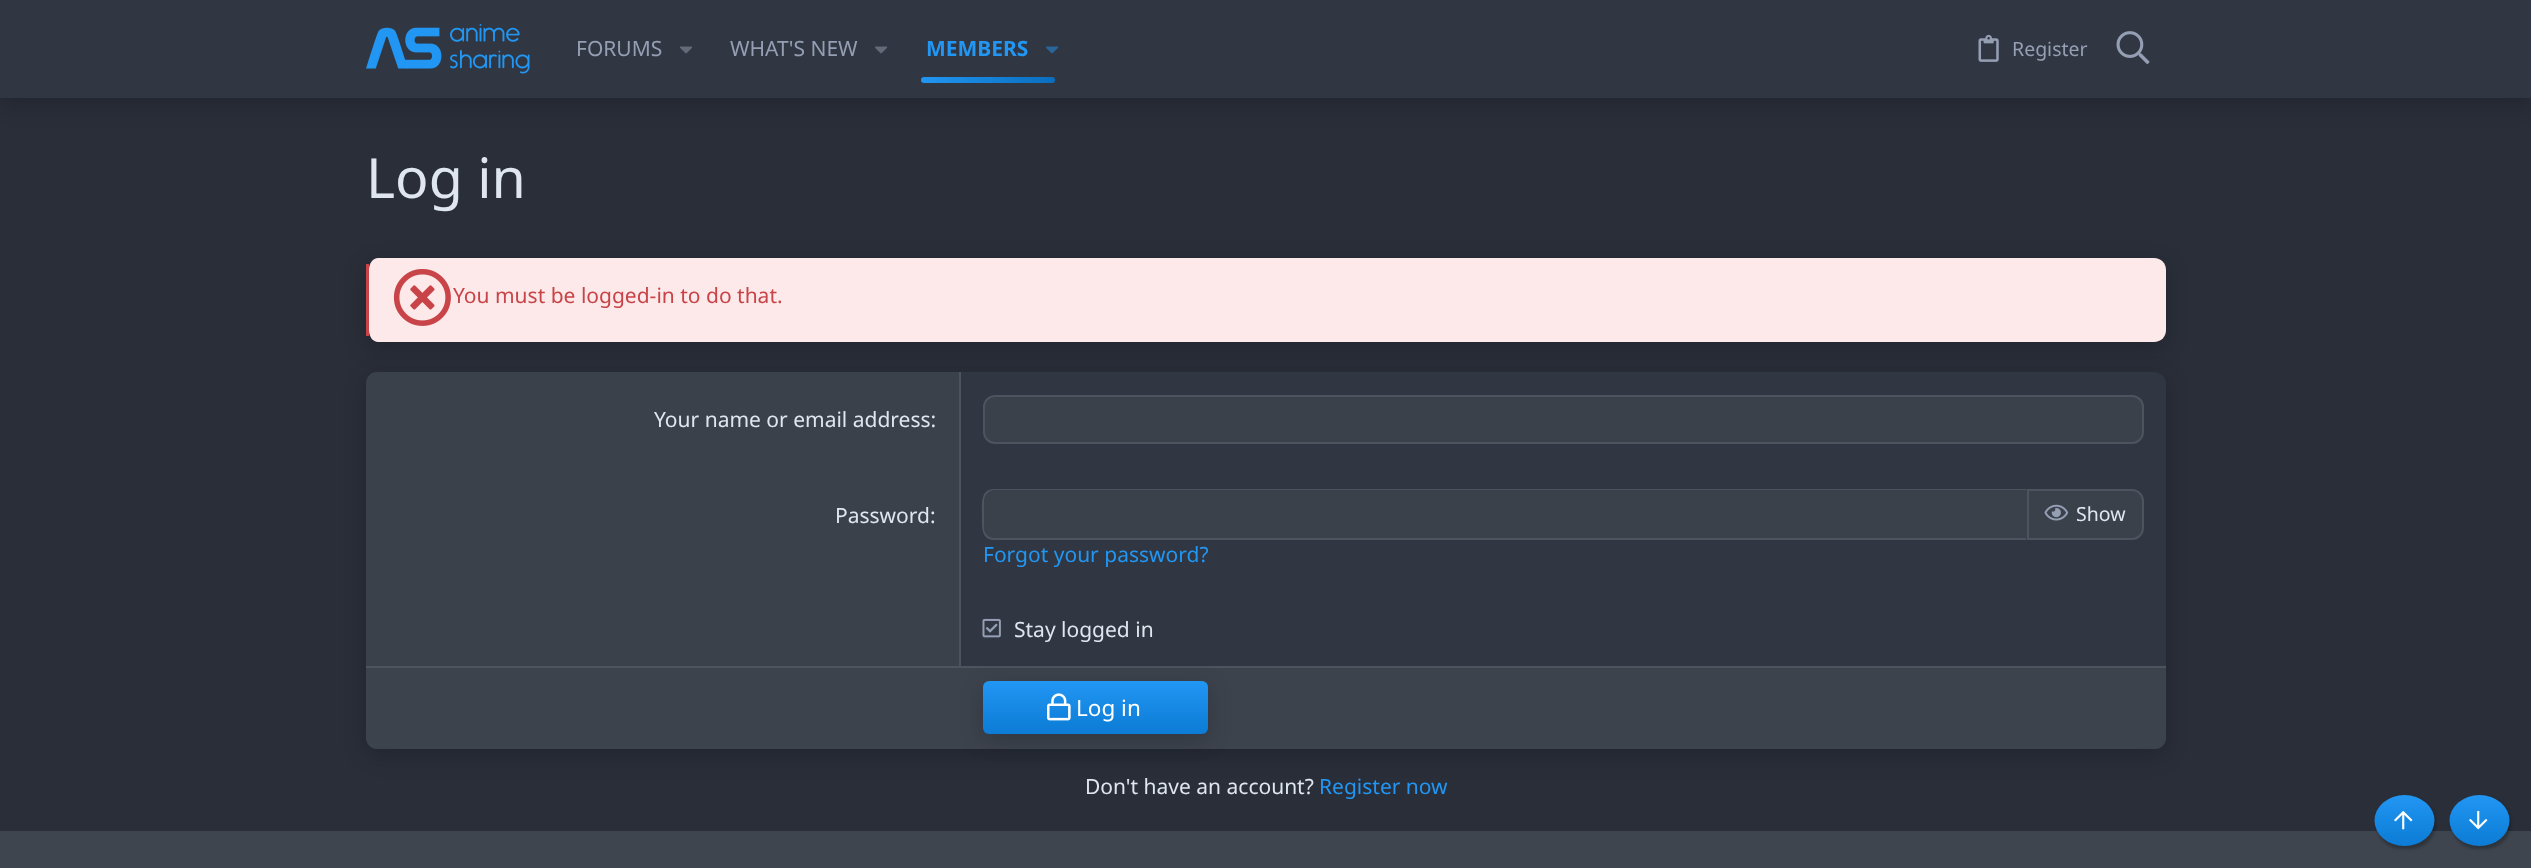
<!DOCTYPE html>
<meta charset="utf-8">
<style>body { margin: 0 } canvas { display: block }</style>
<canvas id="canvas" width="2531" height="868"></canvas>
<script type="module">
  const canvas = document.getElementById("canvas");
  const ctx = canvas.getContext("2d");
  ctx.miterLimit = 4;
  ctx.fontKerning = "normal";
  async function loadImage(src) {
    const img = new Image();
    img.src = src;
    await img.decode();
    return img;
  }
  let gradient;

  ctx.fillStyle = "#292e39";
  ctx.fillRect(0, 0, 2531, 868);
  ctx.fillStyle = "rgba(0, 0, 0, 0.2)";
  ctx.filter = "blur(11px)";
  ctx.beginPath();
  ctx.rect(0, 6, 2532, 98);
  ctx.fill();
  ctx.filter = "none";
  ctx.fillStyle = "#313742";
  ctx.fillRect(0, 0, 2531, 98);
  ctx.drawImage(await loadImage("img1.png"), 366, 24, 164, 50);
  ctx.font = "21px Noto Sans";
  ctx.fillStyle = "#959fb4";
  ctx.fillText("FORUMS", 576, 56);
  ctx.drawImage(await loadImage("img2.png"), 680, 46, 13, 8);
  ctx.fillText("WHAT'S NEW", 730, 56);
  ctx.drawImage(await loadImage("img2.png"), 875, 46, 13, 8);
  ctx.font = "bold 21px Noto Sans";
  ctx.fillStyle = "#2196f3";
  ctx.fillText("MEMBERS", 926, 56);
  ctx.drawImage(await loadImage("img3.png"), 1046, 46, 13, 8);
  gradient = ctx.createLinearGradient(921, 79, 1055, 80);
  gradient.addColorStop(0, "#2196f3");
  gradient.addColorStop(1, "#0a6ebd");
  ctx.fillStyle = gradient;
  ctx.beginPath();
  ctx.roundRect(921, 77, 134, 6, 3);
  ctx.fill();
  ctx.drawImage(await loadImage("img4.png"), 1978, 34, 21, 28);
  ctx.font = "19.5px Noto Sans";
  ctx.fillStyle = "#959fb4";
  ctx.fillText("Register", 2012, 56);
  ctx.drawImage(await loadImage("img5.png"), 2116, 31, 34, 34);
  ctx.font = "55.5px Noto Sans";
  ctx.fillStyle = "#e0e6f0";
  ctx.fillText("Log in", 366, 198);
  ctx.fillStyle = "rgba(0, 0, 0, 0.2)";
  ctx.filter = "blur(11px)";
  ctx.beginPath();
  ctx.roundRect(366, 378, 1800, 377, 12);
  ctx.fill();
  ctx.filter = "none";
  ctx.fillStyle = "#313742";
  ctx.beginPath();
  ctx.roundRect(366, 372, 1800, 377, 12);
  ctx.fill();
  ctx.fillStyle = "rgba(0, 0, 0, 0.2)";
  ctx.filter = "blur(11px)";
  ctx.beginPath();
  ctx.roundRect(366, 264, 1800, 84, 12);
  ctx.fill();
  ctx.filter = "none";
  ctx.fillStyle = "#fde9e9";
  ctx.beginPath();
  ctx.moveTo(378, 258);
  ctx.lineTo(2154, 258);
  ctx.bezierCurveTo(2161, 258, 2166, 263, 2166, 270);
  ctx.lineTo(2166, 330);
  ctx.bezierCurveTo(2166, 337, 2161, 342, 2154, 342);
  ctx.lineTo(378, 342);
  ctx.bezierCurveTo(373, 342, 369, 337, 369, 330);
  ctx.lineTo(369, 270);
  ctx.bezierCurveTo(369, 263, 373, 258, 378, 258);
  ctx.closePath();
  ctx.fill();
  ctx.fillStyle = "#c84448";
  ctx.fillRect(366, 264, 3, 72);
  ctx.drawImage(await loadImage("img6.png"), 393, 269, 58, 57);
  ctx.font = "21px Noto Sans";
  ctx.fillText("You must be logged-in to do that.", 453, 303);
  ctx.fillStyle = "#3b414b";
  ctx.beginPath();
  ctx.roundRect(366, 372, 594, 95, [11, 0, 0, 0]);
  ctx.fill();
  ctx.fillStyle = "#4d5460";
  ctx.fillRect(959, 372, 2, 294);
  ctx.fillStyle = "#e0e6f0";
  ctx.fillText("Your name or email address:", 654, 427);
  ctx.fillStyle = "#3b414b";
  ctx.beginPath();
  ctx.roundRect(984, 396, 1159, 47, 11);
  ctx.fill();
  ctx.strokeStyle = "#4d5460";
  ctx.lineWidth = 2;
  ctx.stroke();
  ctx.fillRect(366, 467, 593, 199);
  ctx.fillStyle = "#e0e6f0";
  ctx.fillText("Password:", 835, 523);
  ctx.fillStyle = "#3b414b";
  ctx.beginPath();
  ctx.roundRect(983, 489, 1044, 51, [12, 0, 0, 12]);
  ctx.fill();
  ctx.fillStyle = "#4d5460";
  ctx.beginPath();
  ctx.moveTo(994, 489);
  ctx.lineTo(2026, 489);
  ctx.lineTo(2026, 540);
  ctx.lineTo(994, 540);
  ctx.bezierCurveTo(980, 540, 982, 524, 982, 514);
  ctx.bezierCurveTo(982, 505, 980, 489, 994, 489);
  ctx.closePath();
  ctx.moveTo(994, 490);
  ctx.lineTo(2026, 490);
  ctx.lineTo(2026, 538);
  ctx.lineTo(994, 538);
  ctx.bezierCurveTo(989, 538, 984, 534, 984, 528);
  ctx.lineTo(984, 501);
  ctx.bezierCurveTo(984, 495, 989, 490, 994, 490);
  ctx.closePath();
  ctx.fill("evenodd");
  ctx.fillStyle = "#3b414b";
  ctx.beginPath();
  ctx.roundRect(2028, 490, 115, 49, [0, 11, 11, 0]);
  ctx.fill();
  ctx.stroke();
  ctx.drawImage(await loadImage("img7.png"), 2044, 504, 25, 17);
  ctx.font = "19.5px Noto Sans";
  ctx.fillStyle = "#e0e6f0";
  ctx.fillText("Show", 2076, 521);
  ctx.font = "21px Noto Sans";
  ctx.fillStyle = "#2196f3";
  ctx.fillText("Forgot your password?", 983, 562);
  ctx.drawImage(await loadImage("img8.png"), 982, 618, 19, 20);
  ctx.fillStyle = "#e0e6f0";
  ctx.fillText("Stay logged in", 1014, 637);
  ctx.fillStyle = "rgba(63, 69, 79, 0.9)";
  ctx.beginPath();
  ctx.roundRect(366, 666, 1800, 83, [0, 0, 11, 11]);
  ctx.fill();
  ctx.fillStyle = "#4d5460";
  ctx.fillRect(366, 666, 1800, 2);
  ctx.fillStyle = "rgba(0, 0, 0, 0.2)";
  ctx.filter = "blur(11px)";
  ctx.beginPath();
  ctx.roundRect(983, 687, 225, 53, 6);
  ctx.fill();
  ctx.filter = "none";
  gradient = ctx.createLinearGradient(1095, 681, 1095, 734);
  gradient.addColorStop(0, "#2196f3");
  gradient.addColorStop(1, "#0c7cd5");
  ctx.fillStyle = gradient;
  ctx.beginPath();
  ctx.roundRect(983, 681, 225, 53, 6);
  ctx.fill();
  ctx.drawImage(await loadImage("img9.png"), 1047, 693, 24, 28);
  ctx.font = "22.5px Noto Sans";
  ctx.fillStyle = "#ffffff";
  ctx.fillText("Log in", 1076, 716);
  ctx.font = "21px Noto Sans";
  ctx.fillStyle = "#e0e6f0";
  ctx.fillText("Don't have an account?", 1085, 794);
  ctx.fillStyle = "#2196f3";
  ctx.fillText("Register now", 1319, 794);
  ctx.fillStyle = "#3f454f";
  ctx.fillRect(0, 831, 2531, 37);
  ctx.fillStyle = "rgba(0, 0, 0, 0.25)";
  ctx.filter = "blur(1.5px)";
  ctx.beginPath();
  ctx.roundRect(2376, 798, 60, 51, 25.5);
  ctx.fill();
  ctx.filter = "none";
  gradient = ctx.createLinearGradient(2405, 795, 2405, 846);
  gradient.addColorStop(0, "#2196f3");
  gradient.addColorStop(1, "#0c7cd5");
  ctx.fillStyle = gradient;
  ctx.beginPath();
  ctx.ellipse(2404.5, 820.5, 30, 25.5, 0, 0, Math.PI * 2);
  ctx.fill();
  ctx.drawImage(await loadImage("img10.png"), 2394, 811, 19, 19);
  ctx.fillStyle = "rgba(0, 0, 0, 0.25)";
  ctx.filter = "blur(1.5px)";
  ctx.beginPath();
  ctx.roundRect(2451, 798, 60, 51, 25.5);
  ctx.fill();
  ctx.filter = "none";
  gradient = ctx.createLinearGradient(2480, 795, 2480, 846);
  gradient.addColorStop(0, "#2196f3");
  gradient.addColorStop(1, "#0c7cd5");
  ctx.fillStyle = gradient;
  ctx.beginPath();
  ctx.ellipse(2479.5, 820.5, 30, 25.5, 0, 0, Math.PI * 2);
  ctx.fill();
  ctx.drawImage(await loadImage("img11.png"), 2469, 810, 19, 20);
</script>
